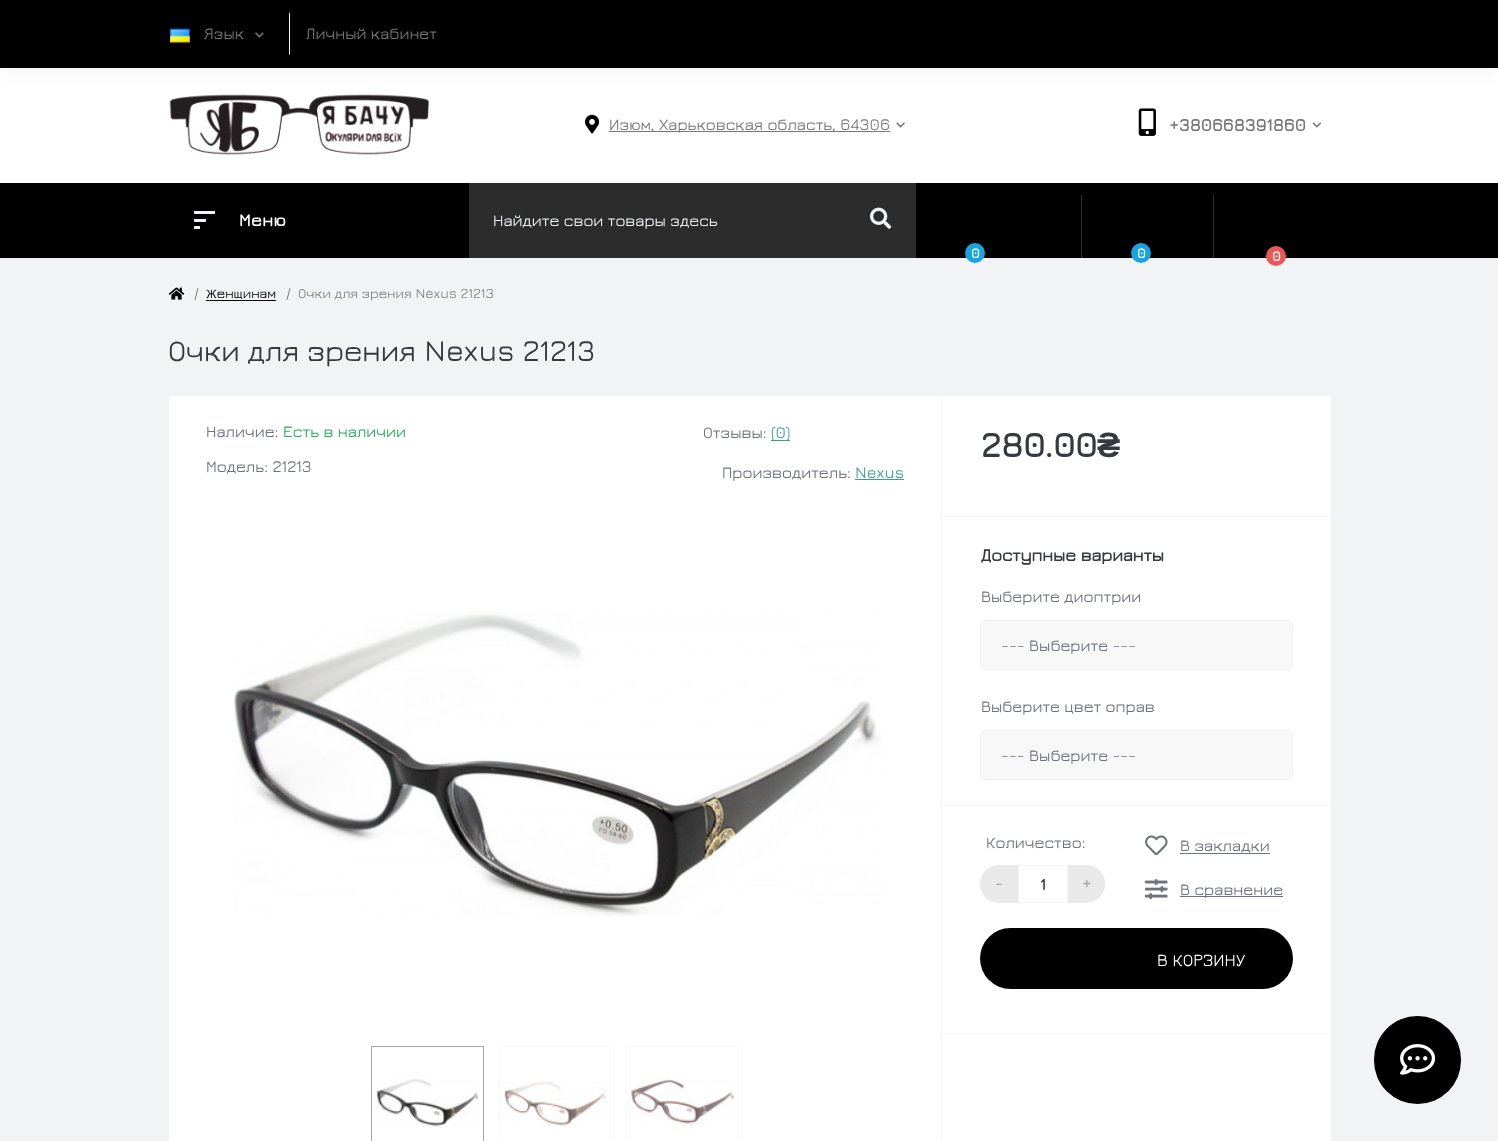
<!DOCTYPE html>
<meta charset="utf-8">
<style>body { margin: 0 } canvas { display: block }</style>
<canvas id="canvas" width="1498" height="1141"></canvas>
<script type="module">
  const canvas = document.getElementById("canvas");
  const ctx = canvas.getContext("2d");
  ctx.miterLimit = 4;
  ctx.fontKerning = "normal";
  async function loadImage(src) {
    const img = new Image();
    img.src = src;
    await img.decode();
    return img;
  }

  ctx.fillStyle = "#f2f3f5";
  ctx.fillRect(0, 0, 1498, 1141);
  ctx.fillStyle = "#ffffff";
  ctx.fillRect(0, 68, 1498, 115);
  ctx.drawImage(await loadImage("img3.png"), 169, 94, 261, 61);
  ctx.fillStyle = "rgba(0, 0, 0, 0.06)";
  ctx.filter = "blur(9.5px)";
  ctx.beginPath();
  ctx.rect(0, 0, 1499, 68);
  ctx.fill();
  ctx.filter = "none";
  ctx.fillStyle = "#000000";
  ctx.fillRect(0, 0, 1498, 68);
  ctx.fillStyle = "#f7f7f7";
  ctx.beginPath();
  ctx.moveTo(290, 12);
  ctx.lineTo(290, 55);
  ctx.lineTo(289, 54);
  ctx.lineTo(289, 14);
  ctx.closePath();
  ctx.fill();
  ctx.drawImage(await loadImage("img1.png"), 170, 28, 20, 15);
  ctx.font = "300 16.25px Jura";
  ctx.fillStyle = "#777777";
  ctx.fillText("Язык", 204, 39);
  ctx.drawImage(await loadImage("img2.png"), 255, 32, 9, 6);
  ctx.fillText("Личный кабинет", 306, 39);
  ctx.drawImage(await loadImage("img4.png"), 585, 114, 15, 20);
  ctx.fillRect(609, 131, 281, 1);
  ctx.fillText("Изюм, Харьковская область, 64306", 609, 130);
  ctx.drawImage(await loadImage("img5.png"), 896, 122, 9, 6);
  ctx.drawImage(await loadImage("img6.png"), 1138, 108, 18, 28);
  ctx.font = "bold 17.5px Jura";
  ctx.fillText("+380668391860", 1169, 131);
  ctx.drawImage(await loadImage("img7.png"), 1312, 122, 10, 6);
  ctx.fillStyle = "#000000";
  ctx.fillRect(0, 183, 1498, 75);
  ctx.fillStyle = "#303030";
  ctx.fillRect(1213, 195, 1, 63);
  ctx.fillRect(1081, 195, 1, 63);
  ctx.fillStyle = "#eef2f5";
  ctx.fillRect(194, 211, 21, 3);
  ctx.fillRect(194, 219, 12, 3);
  ctx.fillRect(194, 226, 6, 3);
  ctx.letterSpacing = "0.5px";
  ctx.fillStyle = "#ffffff";
  ctx.fillText("Меню", 239, 226);
  ctx.fillStyle = "#2c2c2c";
  ctx.fillRect(469, 183, 447, 75);
  ctx.letterSpacing = "0px";
  ctx.font = "300 16.25px Jura";
  ctx.fillStyle = "#eef2f5";
  ctx.fillText("Найдите свои товары здесь", 493, 226);
  ctx.drawImage(await loadImage("img8.png"), 870, 207, 22, 22);
  ctx.fillStyle = "#18a4e1";
  ctx.beginPath();
  ctx.arc(975, 253, 10, 0, Math.PI * 2);
  ctx.fill();
  ctx.font = "bold 13.75px Jura";
  ctx.fillStyle = "#ffffff";
  ctx.fillText("0", 971, 258);
  ctx.fillStyle = "#18a4e1";
  ctx.beginPath();
  ctx.arc(1141, 253, 10, 0, Math.PI * 2);
  ctx.fill();
  ctx.fillStyle = "#ffffff";
  ctx.fillText("0", 1137, 258);
  ctx.fillStyle = "#eb5757";
  ctx.beginPath();
  ctx.arc(1276, 256, 10, 0, Math.PI * 2);
  ctx.fill();
  ctx.fillStyle = "#ffffff";
  ctx.fillText("0", 1272, 261);
  ctx.drawImage(await loadImage("img9.png"), 168, 287, 17, 13);
  ctx.font = "300 13.75px Jura";
  ctx.fillStyle = "#6e727e";
  ctx.fillText("/", 194, 298);
  ctx.fillStyle = "#000000";
  ctx.fillText("Женщинам", 206, 298);
  ctx.fillRect(206, 300, 70, 1);
  ctx.fillStyle = "#6e727e";
  ctx.fillText("/", 286, 298);
  ctx.fillStyle = "#828282";
  ctx.fillText("Очки для зрения Nexus 21213", 298, 298);
  ctx.font = "300 30px Jura";
  ctx.fillStyle = "#373941";
  ctx.fillText("Очки для зрения Nexus 21213", 168, 361);
  ctx.fillStyle = "#ffffff";
  ctx.fillRect(169, 396, 1162, 745);
  ctx.fillStyle = "#f7f7f7";
  ctx.fillRect(941, 396, 1, 745);
  ctx.font = "300 16.25px Jura";
  ctx.fillStyle = "#6e727e";
  ctx.fillText("Наличие:", 206, 437);
  ctx.fillStyle = "#27ae60";
  ctx.fillText("Есть в наличии", 283, 437);
  ctx.fillStyle = "#6e727e";
  ctx.fillText("Модель: 21213", 206, 472);
  ctx.fillText("Отзывы:", 703, 438);
  ctx.fillStyle = "#3b9f95";
  ctx.fillRect(771, 440, 19, 1);
  ctx.fillText("(0)", 771, 438);
  ctx.fillStyle = "#6e727e";
  ctx.fillText("Производитель:", 722, 478);
  ctx.fillStyle = "#3b9f95";
  ctx.fillText("Nexus", 855, 478);
  ctx.fillRect(855, 479, 49, 1);
  ctx.drawImage(await loadImage("img10.png"), 233, 612, 648, 305);
  ctx.strokeStyle = "#a6a6a6";
  ctx.strokeRect(371.5, 1046.5, 112, 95);
  ctx.drawImage(await loadImage("img11.png"), 373, 1079, 107, 48);
  ctx.strokeStyle = "#f9f9f9";
  ctx.strokeRect(499.5, 1046.5, 111, 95);
  ctx.drawImage(await loadImage("img12.png"), 500, 1081, 107, 45);
  ctx.strokeRect(626.5, 1046.5, 112, 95);
  ctx.drawImage(await loadImage("img13.png"), 628, 1077, 107, 49);
  ctx.fillStyle = "#f7f7f7";
  ctx.fillRect(943, 516, 387, 1);
  ctx.font = "bold 35px Jura";
  ctx.fillStyle = "#373941";
  ctx.fillText("280.00", 981, 457);
  ctx.font = "bold 35px Liberation Sans";
  ctx.fillText("₴", 1097, 457);
  ctx.fillStyle = "#f7f7f7";
  ctx.fillRect(943, 805, 387, 1);
  ctx.font = "bold 17.5px Jura";
  ctx.fillStyle = "#373941";
  ctx.fillText("Доступные варианты", 981, 561);
  ctx.font = "300 16.25px Jura";
  ctx.fillStyle = "#6e727e";
  ctx.fillText("Выберите диоптрии", 981, 602);
  ctx.fillStyle = "#f8f8f8";
  ctx.beginPath();
  ctx.roundRect(980.5, 620.5, 312, 49, 5.5);
  ctx.fill();
  ctx.strokeStyle = "#f2f2f2";
  ctx.stroke();
  ctx.fillStyle = "#6e727e";
  ctx.fillText("--- Выберите ---", 1001, 651);
  ctx.fillText("Выберите цвет оправ", 981, 712);
  ctx.fillStyle = "#f8f8f8";
  ctx.beginPath();
  ctx.roundRect(980.5, 730.5, 312, 49, 5.5);
  ctx.fill();
  ctx.stroke();
  ctx.fillStyle = "#6e727e";
  ctx.fillText("--- Выберите ---", 1001, 761);
  ctx.fillStyle = "#f7f7f7";
  ctx.fillRect(943, 1033, 387, 1);
  ctx.fillStyle = "#6e727e";
  ctx.fillText("Количество:", 986, 848);
  ctx.fillStyle = "#e9e9e9";
  ctx.beginPath();
  ctx.roundRect(980, 865, 38, 38, [19, 0, 0, 19]);
  ctx.fill();
  ctx.font = "bold 16.25px Jura";
  ctx.fillStyle = "#a8a8a8";
  ctx.fillText("-", 995, 889);
  ctx.strokeStyle = "#f6f6f6";
  ctx.strokeRect(1018.5, 865.5, 49, 37);
  ctx.fillStyle = "#333333";
  ctx.fillText("1", 1040, 890);
  ctx.fillStyle = "#e9e9e9";
  ctx.beginPath();
  ctx.roundRect(1068, 865, 37, 38, [0, 18.5, 18.5, 0]);
  ctx.fill();
  ctx.fillStyle = "#a8a8a8";
  ctx.fillText("+", 1082, 889);
  ctx.drawImage(await loadImage("img14.png"), 1145, 835, 23, 21);
  ctx.font = "300 16.25px Jura";
  ctx.fillStyle = "#6e727e";
  ctx.fillText("В закладки", 1180, 851);
  ctx.fillRect(1180, 853, 90, 1);
  ctx.drawImage(await loadImage("img15.png"), 1145, 879, 23, 20);
  ctx.fillRect(1180, 896, 103, 1);
  ctx.fillText("В сравнение", 1180, 895);
  ctx.fillStyle = "#000000";
  ctx.beginPath();
  ctx.roundRect(980, 928, 313, 61, 30.5);
  ctx.fill();
  ctx.font = "300 17.5px Jura";
  ctx.fillStyle = "#ffffff";
  ctx.fillText("В КОРЗИНУ", 1157, 966);
  ctx.fillStyle = "#000000";
  ctx.beginPath();
  ctx.roundRect(1374, 1016, 87, 88, 43.5);
  ctx.fill();
  ctx.drawImage(await loadImage("img16.png"), 1400, 1044, 36, 31);
</script>
